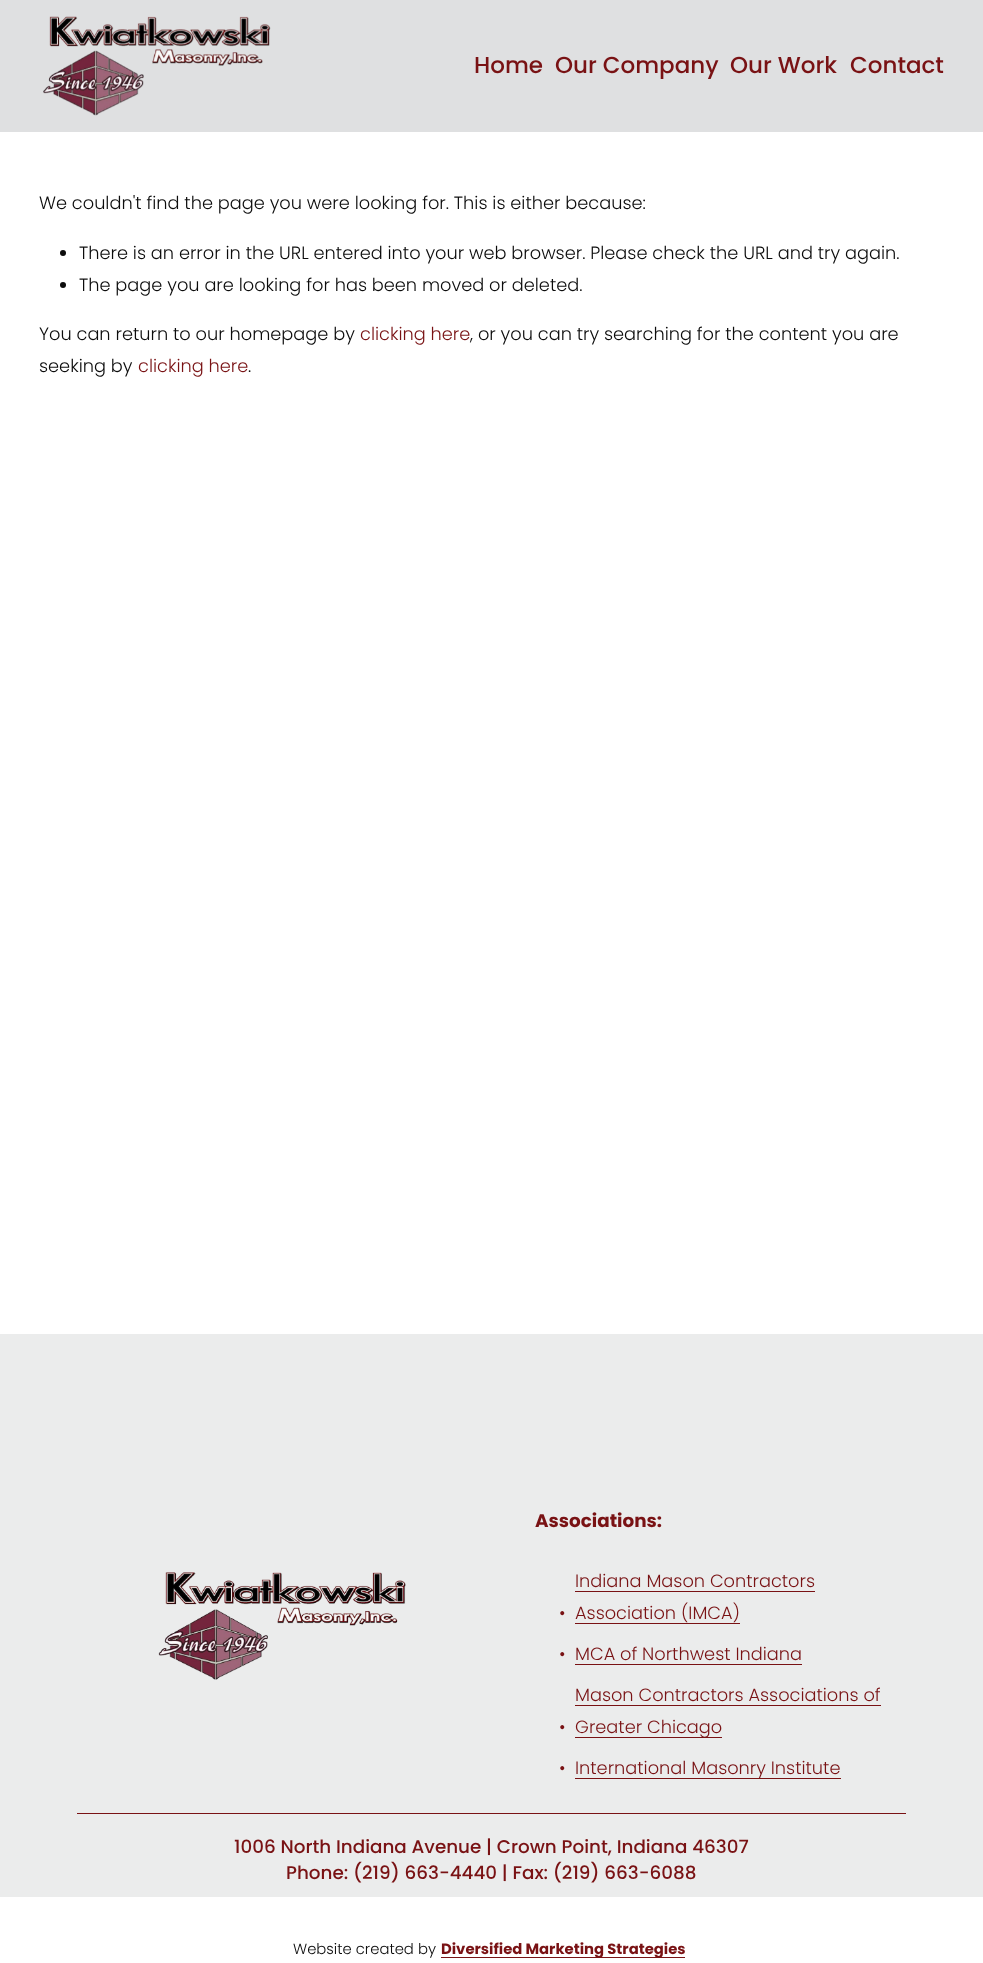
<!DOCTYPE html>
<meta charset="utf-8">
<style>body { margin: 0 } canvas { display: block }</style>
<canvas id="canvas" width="983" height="1963"></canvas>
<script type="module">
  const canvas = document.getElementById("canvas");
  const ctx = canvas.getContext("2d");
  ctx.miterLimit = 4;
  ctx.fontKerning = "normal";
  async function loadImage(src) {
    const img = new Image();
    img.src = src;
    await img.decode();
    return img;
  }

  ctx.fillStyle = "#ffffff";
  ctx.fillRect(0, 0, 983, 1963);
  ctx.fillStyle = "#dfe0e1";
  ctx.fillRect(0, 0, 983, 132);
  ctx.drawImage(await loadImage("img1.png"), 43, 16, 228, 100);
  ctx.font = "500 23px Poppins";
  ctx.fillStyle = "#791214";
  ctx.fillText("Home", 474, 73);
  ctx.fillText("Our Company", 555, 73);
  ctx.fillText("Our Work", 730, 73);
  ctx.fillText("Contact", 850, 73);
  ctx.font = "300 17.75px Poppins";
  ctx.fillStyle = "#0c0c0c";
  ctx.fillText("We couldn't find the page you were looking for. This is either because:", 39, 209);
  ctx.beginPath();
  ctx.arc(63, 253, 3, 0, Math.PI * 2);
  ctx.fill();
  ctx.fillText("There is an error in the URL entered into your web browser. Please check the URL and try again.", 79, 259);
  ctx.beginPath();
  ctx.arc(63, 285, 3, 0, Math.PI * 2);
  ctx.fill();
  ctx.fillText("The page you are looking for has been moved or deleted.", 79, 291);
  ctx.fillText("You can return to our homepage by", 39, 340);
  ctx.fillStyle = "#791214";
  ctx.fillText("clicking here", 360, 340);
  ctx.fillStyle = "#0c0c0c";
  ctx.fillText(", or you can try searching for the content you are", 470, 340);
  ctx.fillText("seeking by", 39, 372);
  ctx.fillStyle = "#791214";
  ctx.fillText("clicking here", 138, 372);
  ctx.fillStyle = "#0c0c0c";
  ctx.fillText(".", 248, 372);
  ctx.fillStyle = "#ebecec";
  ctx.fillRect(0, 1334, 983, 563);
  ctx.drawImage(await loadImage("img2.png"), 158, 1572, 248, 108);
  ctx.font = "bold 18.35px Poppins";
  ctx.fillStyle = "#791214";
  ctx.fillText("Associations:", 535, 1527);
  ctx.font = "300 17.75px Poppins";
  ctx.fillText("•", 559, 1619);
  ctx.fillText("Indiana Mason Contractors", 575, 1587);
  ctx.fillRect(575, 1591, 240, 1);
  ctx.fillText("Association (IMCA)", 575, 1619);
  ctx.fillRect(575, 1623, 165, 1);
  ctx.fillText("•", 559, 1660);
  ctx.fillText("MCA of Northwest Indiana", 575, 1660);
  ctx.fillRect(575, 1664, 227, 1);
  ctx.fillText("•", 559, 1733);
  ctx.fillText("Mason Contractors Associations of", 575, 1701);
  ctx.fillRect(575, 1705, 306, 1);
  ctx.fillRect(575, 1737, 147, 1);
  ctx.fillText("Greater Chicago", 575, 1733);
  ctx.fillText("•", 559, 1774);
  ctx.fillRect(575, 1778, 266, 1);
  ctx.fillText("International Masonry Institute", 575, 1774);
  ctx.fillRect(77, 1813, 829, 1);
  ctx.font = "500 18.35px Poppins";
  ctx.fillText("1006 North Indiana Avenue | Crown Point, Indiana 46307", 234, 1853);
  ctx.fillText("Phone: (219) 663-4440 | Fax: (219) 663-6088", 286, 1879);
  ctx.font = "300 14.8px Poppins";
  ctx.fillStyle = "#0c0c0c";
  ctx.fillText("Website created by", 293, 1954);
  ctx.fillStyle = "#791214";
  ctx.fillRect(441, 1957, 244, 1);
  ctx.font = "bold 14.8px Poppins";
  ctx.fillText("Diversified Marketing Strategies", 441, 1954);
</script>
